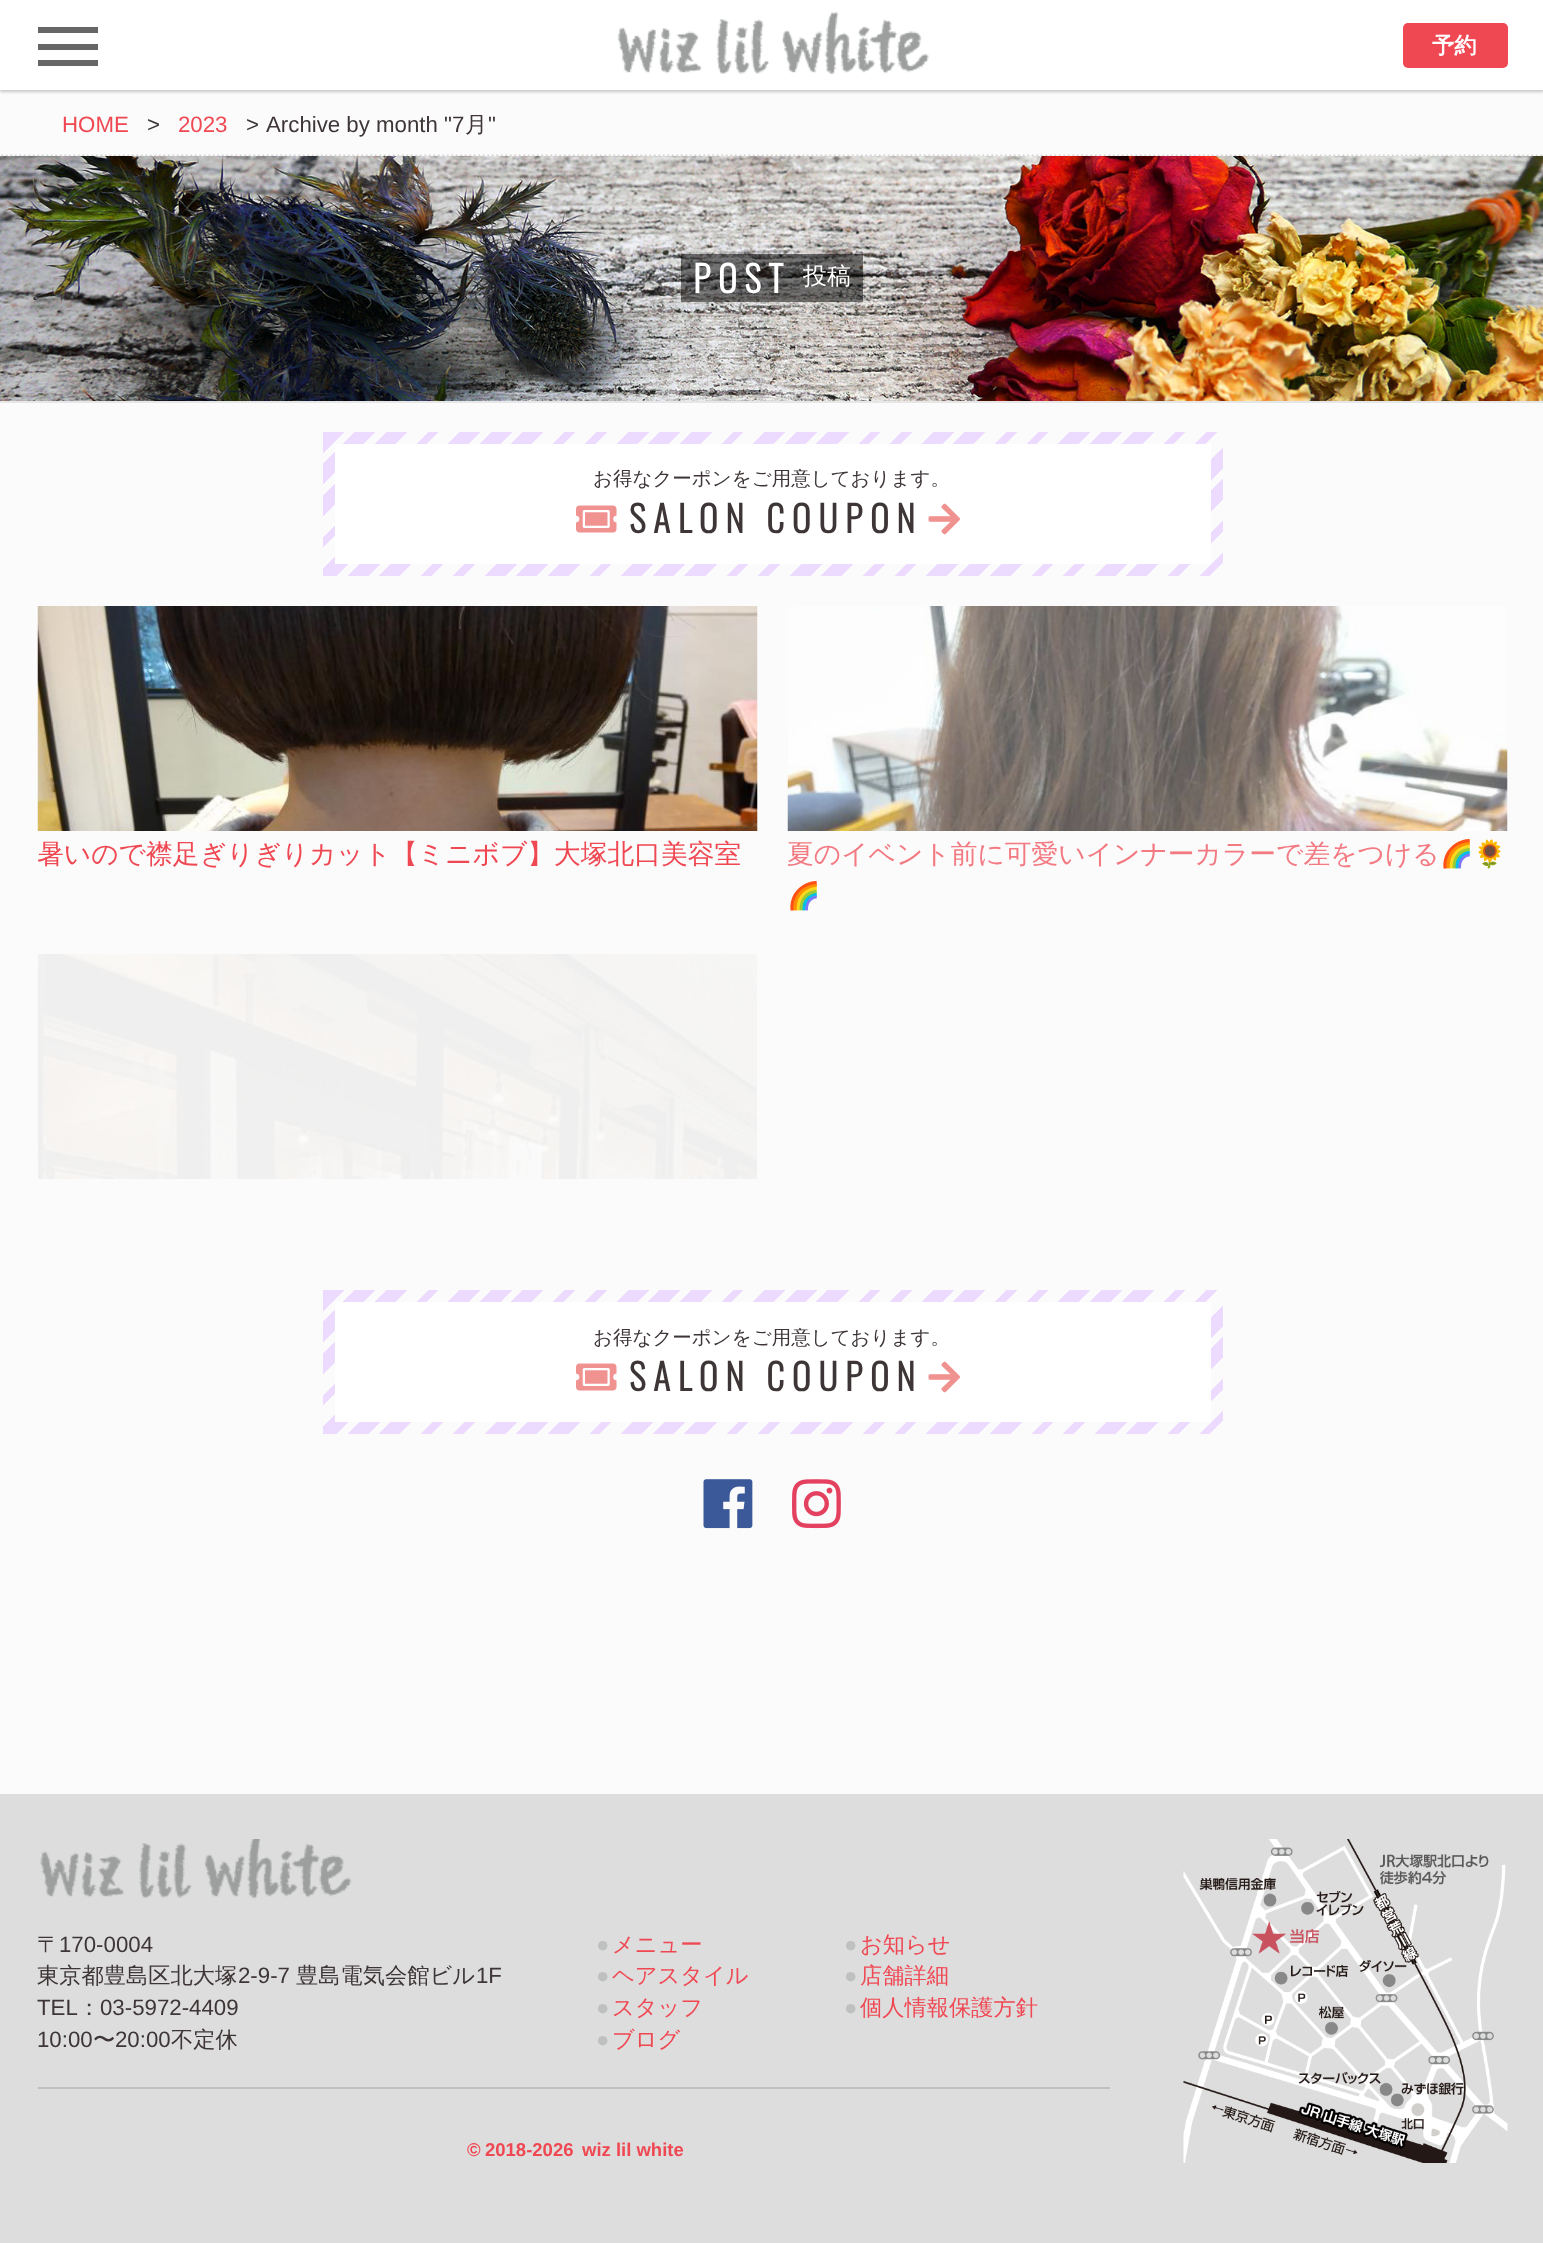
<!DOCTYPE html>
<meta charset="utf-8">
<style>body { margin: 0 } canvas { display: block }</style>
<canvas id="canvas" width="1543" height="2243"></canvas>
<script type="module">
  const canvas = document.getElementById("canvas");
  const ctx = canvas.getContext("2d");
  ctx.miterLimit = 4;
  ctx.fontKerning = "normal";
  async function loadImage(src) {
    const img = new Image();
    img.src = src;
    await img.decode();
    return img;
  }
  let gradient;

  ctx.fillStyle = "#fbfbfb";
  ctx.fillRect(0, 0, 1543, 2243);
  ctx.fillStyle = "rgba(0, 0, 0, 0.2)";
  ctx.filter = "blur(1.5px)";
  ctx.beginPath();
  ctx.rect(0, 2, 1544, 90);
  ctx.fill();
  ctx.filter = "none";
  ctx.fillStyle = "#ffffff";
  ctx.fillRect(0, 0, 1543, 90);
  ctx.fillStyle = "#666666";
  ctx.fillRect(38, 27, 60, 6);
  ctx.fillRect(38, 44, 60, 6);
  ctx.fillRect(38, 60, 60, 6);
  ctx.drawImage(await loadImage("img1.png"), 617, 11, 312, 64);
  ctx.fillStyle = "#f04853";
  ctx.beginPath();
  ctx.roundRect(1403, 23, 105, 45, 5);
  ctx.fill();
  ctx.font = "bold 22.25px WenQuanYi Zen Hei";
  ctx.fillStyle = "#ffffff";
  ctx.fillText("予約", 1432, 53);
  ctx.drawImage(await loadImage("img2.png"), 1, 154, 1542, 2);
  ctx.font = "22.25px Liberation Sans";
  ctx.fillStyle = "#f04853";
  ctx.fillText("HOME", 62, 132);
  ctx.fillStyle = "#3d3536";
  ctx.fillText(">", 147, 132);
  ctx.fillStyle = "#f04853";
  ctx.fillText("2023", 178, 132);
  ctx.fillStyle = "#3d3536";
  ctx.fillText(">", 246, 132);
  ctx.fillText("Archive by month \"7", 266, 132);
  ctx.font = "500 22.25px WenQuanYi Zen Hei";
  ctx.fillText("月", 465, 132);
  ctx.font = "22.25px Liberation Sans";
  ctx.fillText("\"", 488, 132);
  ctx.drawImage(await loadImage("img3.png"), 0, 156, 1543, 245);
  ctx.fillStyle = "#e6e6e6";
  ctx.fillRect(0, 401, 1543, 2);
  ctx.fillStyle = "rgba(0, 0, 0, 0.5)";
  ctx.fillRect(681, 254, 182, 48);
  ctx.letterSpacing = "7.5px";
  ctx.font = "bold 36px Oswald";
  ctx.fillStyle = "#ffffff";
  ctx.fillText("POST", 693, 293);
  ctx.letterSpacing = "0px";
  ctx.font = "500 24px WenQuanYi Zen Hei";
  ctx.fillText("投稿", 803, 284);
  gradient = ctx.createLinearGradient(512, 243, 1038, 769);
  gradient.addColorStop(0, "#eddbff");
  gradient.addColorStop(0.02, "#eddbff");
  gradient.addColorStop(0.02, "#fbfbfb");
  gradient.addColorStop(0.03, "#fbfbfb");
  gradient.addColorStop(0.03, "#eddbff");
  gradient.addColorStop(0.05, "#eddbff");
  gradient.addColorStop(0.05, "#fbfbfb");
  gradient.addColorStop(0.06, "#fbfbfb");
  gradient.addColorStop(0.06, "#eddbff");
  gradient.addColorStop(0.08, "#eddbff");
  gradient.addColorStop(0.08, "#fbfbfb");
  gradient.addColorStop(0.1, "#fbfbfb");
  gradient.addColorStop(0.1, "#eddbff");
  gradient.addColorStop(0.11, "#eddbff");
  gradient.addColorStop(0.11, "#fbfbfb");
  gradient.addColorStop(0.13, "#fbfbfb");
  gradient.addColorStop(0.13, "#eddbff");
  gradient.addColorStop(0.15, "#eddbff");
  gradient.addColorStop(0.15, "#fbfbfb");
  gradient.addColorStop(0.16, "#fbfbfb");
  gradient.addColorStop(0.16, "#eddbff");
  gradient.addColorStop(0.18, "#eddbff");
  gradient.addColorStop(0.18, "#fbfbfb");
  gradient.addColorStop(0.19, "#fbfbfb");
  gradient.addColorStop(0.19, "#eddbff");
  gradient.addColorStop(0.21, "#eddbff");
  gradient.addColorStop(0.21, "#fbfbfb");
  gradient.addColorStop(0.23, "#fbfbfb");
  gradient.addColorStop(0.23, "#eddbff");
  gradient.addColorStop(0.24, "#eddbff");
  gradient.addColorStop(0.24, "#fbfbfb");
  gradient.addColorStop(0.26, "#fbfbfb");
  gradient.addColorStop(0.26, "#eddbff");
  gradient.addColorStop(0.27, "#eddbff");
  gradient.addColorStop(0.27, "#fbfbfb");
  gradient.addColorStop(0.29, "#fbfbfb");
  gradient.addColorStop(0.29, "#eddbff");
  gradient.addColorStop(0.31, "#eddbff");
  gradient.addColorStop(0.31, "#fbfbfb");
  gradient.addColorStop(0.32, "#fbfbfb");
  gradient.addColorStop(0.32, "#eddbff");
  gradient.addColorStop(0.34, "#eddbff");
  gradient.addColorStop(0.34, "#fbfbfb");
  gradient.addColorStop(0.35, "#fbfbfb");
  gradient.addColorStop(0.35, "#eddbff");
  gradient.addColorStop(0.37, "#eddbff");
  gradient.addColorStop(0.37, "#fbfbfb");
  gradient.addColorStop(0.39, "#fbfbfb");
  gradient.addColorStop(0.39, "#eddbff");
  gradient.addColorStop(0.4, "#eddbff");
  gradient.addColorStop(0.4, "#fbfbfb");
  gradient.addColorStop(0.42, "#fbfbfb");
  gradient.addColorStop(0.42, "#eddbff");
  gradient.addColorStop(0.44, "#eddbff");
  gradient.addColorStop(0.44, "#fbfbfb");
  gradient.addColorStop(0.45, "#fbfbfb");
  gradient.addColorStop(0.45, "#eddbff");
  gradient.addColorStop(0.47, "#eddbff");
  gradient.addColorStop(0.47, "#fbfbfb");
  gradient.addColorStop(0.48, "#fbfbfb");
  gradient.addColorStop(0.48, "#eddbff");
  gradient.addColorStop(0.5, "#eddbff");
  gradient.addColorStop(0.5, "#fbfbfb");
  gradient.addColorStop(0.52, "#fbfbfb");
  gradient.addColorStop(0.52, "#eddbff");
  gradient.addColorStop(0.53, "#eddbff");
  gradient.addColorStop(0.53, "#fbfbfb");
  gradient.addColorStop(0.55, "#fbfbfb");
  gradient.addColorStop(0.55, "#eddbff");
  gradient.addColorStop(0.56, "#eddbff");
  gradient.addColorStop(0.56, "#fbfbfb");
  gradient.addColorStop(0.58, "#fbfbfb");
  gradient.addColorStop(0.58, "#eddbff");
  gradient.addColorStop(0.6, "#eddbff");
  gradient.addColorStop(0.6, "#fbfbfb");
  gradient.addColorStop(0.61, "#fbfbfb");
  gradient.addColorStop(0.61, "#eddbff");
  gradient.addColorStop(0.63, "#eddbff");
  gradient.addColorStop(0.63, "#fbfbfb");
  gradient.addColorStop(0.65, "#fbfbfb");
  gradient.addColorStop(0.65, "#eddbff");
  gradient.addColorStop(0.66, "#eddbff");
  gradient.addColorStop(0.66, "#fbfbfb");
  gradient.addColorStop(0.68, "#fbfbfb");
  gradient.addColorStop(0.68, "#eddbff");
  gradient.addColorStop(0.69, "#eddbff");
  gradient.addColorStop(0.69, "#fbfbfb");
  gradient.addColorStop(0.71, "#fbfbfb");
  gradient.addColorStop(0.71, "#eddbff");
  gradient.addColorStop(0.73, "#eddbff");
  gradient.addColorStop(0.73, "#fbfbfb");
  gradient.addColorStop(0.74, "#fbfbfb");
  gradient.addColorStop(0.74, "#eddbff");
  gradient.addColorStop(0.76, "#eddbff");
  gradient.addColorStop(0.76, "#fbfbfb");
  gradient.addColorStop(0.77, "#fbfbfb");
  gradient.addColorStop(0.77, "#eddbff");
  gradient.addColorStop(0.79, "#eddbff");
  gradient.addColorStop(0.79, "#fbfbfb");
  gradient.addColorStop(0.81, "#fbfbfb");
  gradient.addColorStop(0.81, "#eddbff");
  gradient.addColorStop(0.82, "#eddbff");
  gradient.addColorStop(0.82, "#fbfbfb");
  gradient.addColorStop(0.84, "#fbfbfb");
  gradient.addColorStop(0.84, "#eddbff");
  gradient.addColorStop(0.85, "#eddbff");
  gradient.addColorStop(0.85, "#fbfbfb");
  gradient.addColorStop(0.87, "#fbfbfb");
  gradient.addColorStop(0.87, "#eddbff");
  gradient.addColorStop(0.89, "#eddbff");
  gradient.addColorStop(0.89, "#fbfbfb");
  gradient.addColorStop(0.9, "#fbfbfb");
  gradient.addColorStop(0.9, "#eddbff");
  gradient.addColorStop(0.92, "#eddbff");
  gradient.addColorStop(0.92, "#fbfbfb");
  gradient.addColorStop(0.94, "#fbfbfb");
  gradient.addColorStop(0.94, "#eddbff");
  gradient.addColorStop(0.95, "#eddbff");
  gradient.addColorStop(0.95, "#fbfbfb");
  gradient.addColorStop(0.97, "#fbfbfb");
  gradient.addColorStop(0.97, "#eddbff");
  gradient.addColorStop(0.98, "#eddbff");
  gradient.addColorStop(0.98, "#fbfbfb");
  gradient.addColorStop(1, "#fbfbfb");
  ctx.fillStyle = gradient;
  ctx.fillRect(323, 432, 900, 144);
  ctx.fillStyle = "#ffffff";
  ctx.fillRect(335, 444, 876, 120);
  ctx.font = "500 19.5px WenQuanYi Zen Hei";
  ctx.fillStyle = "#3d3536";
  ctx.fillText("お得なクーポンをご用意しております。", 593, 485);
  ctx.drawImage(await loadImage("img4.png"), 576, 505, 41, 28);
  ctx.letterSpacing = "7.5px";
  ctx.font = "bold 36px Oswald";
  ctx.fillText("SALON COUPON", 629, 533);
  ctx.drawImage(await loadImage("img5.png"), 928, 503, 32, 32);
  ctx.drawImage(await loadImage("img6.png"), 37, 606, 721, 225);
  ctx.letterSpacing = "0px";
  ctx.font = "500 26.75px WenQuanYi Zen Hei";
  ctx.fillStyle = "#f04853";
  ctx.fillText("暑いので襟足ぎりぎりカット【ミニボブ】大塚北口美容室", 37, 863);
  ctx.drawImage(await loadImage("img7.png"), 787, 606, 721, 225);
  ctx.fillStyle = "#f37a82";
  ctx.fillText("夏のイベント前に可愛いインナーカラーで差をつける", 787, 863);
  ctx.font = "26.75px Noto Color Emoji";
  ctx.fillText("🌈🌻", 1440, 863);
  ctx.fillText("🌈", 787, 905);
  ctx.drawImage(await loadImage("img8.png"), 38, 954, 719, 225);
  gradient = ctx.createLinearGradient(512, 1101, 1038, 1627);
  gradient.addColorStop(0, "#eddbff");
  gradient.addColorStop(0.02, "#eddbff");
  gradient.addColorStop(0.02, "#fbfbfb");
  gradient.addColorStop(0.03, "#fbfbfb");
  gradient.addColorStop(0.03, "#eddbff");
  gradient.addColorStop(0.05, "#eddbff");
  gradient.addColorStop(0.05, "#fbfbfb");
  gradient.addColorStop(0.06, "#fbfbfb");
  gradient.addColorStop(0.06, "#eddbff");
  gradient.addColorStop(0.08, "#eddbff");
  gradient.addColorStop(0.08, "#fbfbfb");
  gradient.addColorStop(0.1, "#fbfbfb");
  gradient.addColorStop(0.1, "#eddbff");
  gradient.addColorStop(0.11, "#eddbff");
  gradient.addColorStop(0.11, "#fbfbfb");
  gradient.addColorStop(0.13, "#fbfbfb");
  gradient.addColorStop(0.13, "#eddbff");
  gradient.addColorStop(0.15, "#eddbff");
  gradient.addColorStop(0.15, "#fbfbfb");
  gradient.addColorStop(0.16, "#fbfbfb");
  gradient.addColorStop(0.16, "#eddbff");
  gradient.addColorStop(0.18, "#eddbff");
  gradient.addColorStop(0.18, "#fbfbfb");
  gradient.addColorStop(0.19, "#fbfbfb");
  gradient.addColorStop(0.19, "#eddbff");
  gradient.addColorStop(0.21, "#eddbff");
  gradient.addColorStop(0.21, "#fbfbfb");
  gradient.addColorStop(0.23, "#fbfbfb");
  gradient.addColorStop(0.23, "#eddbff");
  gradient.addColorStop(0.24, "#eddbff");
  gradient.addColorStop(0.24, "#fbfbfb");
  gradient.addColorStop(0.26, "#fbfbfb");
  gradient.addColorStop(0.26, "#eddbff");
  gradient.addColorStop(0.27, "#eddbff");
  gradient.addColorStop(0.27, "#fbfbfb");
  gradient.addColorStop(0.29, "#fbfbfb");
  gradient.addColorStop(0.29, "#eddbff");
  gradient.addColorStop(0.31, "#eddbff");
  gradient.addColorStop(0.31, "#fbfbfb");
  gradient.addColorStop(0.32, "#fbfbfb");
  gradient.addColorStop(0.32, "#eddbff");
  gradient.addColorStop(0.34, "#eddbff");
  gradient.addColorStop(0.34, "#fbfbfb");
  gradient.addColorStop(0.35, "#fbfbfb");
  gradient.addColorStop(0.35, "#eddbff");
  gradient.addColorStop(0.37, "#eddbff");
  gradient.addColorStop(0.37, "#fbfbfb");
  gradient.addColorStop(0.39, "#fbfbfb");
  gradient.addColorStop(0.39, "#eddbff");
  gradient.addColorStop(0.4, "#eddbff");
  gradient.addColorStop(0.4, "#fbfbfb");
  gradient.addColorStop(0.42, "#fbfbfb");
  gradient.addColorStop(0.42, "#eddbff");
  gradient.addColorStop(0.44, "#eddbff");
  gradient.addColorStop(0.44, "#fbfbfb");
  gradient.addColorStop(0.45, "#fbfbfb");
  gradient.addColorStop(0.45, "#eddbff");
  gradient.addColorStop(0.47, "#eddbff");
  gradient.addColorStop(0.47, "#fbfbfb");
  gradient.addColorStop(0.48, "#fbfbfb");
  gradient.addColorStop(0.48, "#eddbff");
  gradient.addColorStop(0.5, "#eddbff");
  gradient.addColorStop(0.5, "#fbfbfb");
  gradient.addColorStop(0.52, "#fbfbfb");
  gradient.addColorStop(0.52, "#eddbff");
  gradient.addColorStop(0.53, "#eddbff");
  gradient.addColorStop(0.53, "#fbfbfb");
  gradient.addColorStop(0.55, "#fbfbfb");
  gradient.addColorStop(0.55, "#eddbff");
  gradient.addColorStop(0.56, "#eddbff");
  gradient.addColorStop(0.56, "#fbfbfb");
  gradient.addColorStop(0.58, "#fbfbfb");
  gradient.addColorStop(0.58, "#eddbff");
  gradient.addColorStop(0.6, "#eddbff");
  gradient.addColorStop(0.6, "#fbfbfb");
  gradient.addColorStop(0.61, "#fbfbfb");
  gradient.addColorStop(0.61, "#eddbff");
  gradient.addColorStop(0.63, "#eddbff");
  gradient.addColorStop(0.63, "#fbfbfb");
  gradient.addColorStop(0.65, "#fbfbfb");
  gradient.addColorStop(0.65, "#eddbff");
  gradient.addColorStop(0.66, "#eddbff");
  gradient.addColorStop(0.66, "#fbfbfb");
  gradient.addColorStop(0.68, "#fbfbfb");
  gradient.addColorStop(0.68, "#eddbff");
  gradient.addColorStop(0.69, "#eddbff");
  gradient.addColorStop(0.69, "#fbfbfb");
  gradient.addColorStop(0.71, "#fbfbfb");
  gradient.addColorStop(0.71, "#eddbff");
  gradient.addColorStop(0.73, "#eddbff");
  gradient.addColorStop(0.73, "#fbfbfb");
  gradient.addColorStop(0.74, "#fbfbfb");
  gradient.addColorStop(0.74, "#eddbff");
  gradient.addColorStop(0.76, "#eddbff");
  gradient.addColorStop(0.76, "#fbfbfb");
  gradient.addColorStop(0.77, "#fbfbfb");
  gradient.addColorStop(0.77, "#eddbff");
  gradient.addColorStop(0.79, "#eddbff");
  gradient.addColorStop(0.79, "#fbfbfb");
  gradient.addColorStop(0.81, "#fbfbfb");
  gradient.addColorStop(0.81, "#eddbff");
  gradient.addColorStop(0.82, "#eddbff");
  gradient.addColorStop(0.82, "#fbfbfb");
  gradient.addColorStop(0.84, "#fbfbfb");
  gradient.addColorStop(0.84, "#eddbff");
  gradient.addColorStop(0.85, "#eddbff");
  gradient.addColorStop(0.85, "#fbfbfb");
  gradient.addColorStop(0.87, "#fbfbfb");
  gradient.addColorStop(0.87, "#eddbff");
  gradient.addColorStop(0.89, "#eddbff");
  gradient.addColorStop(0.89, "#fbfbfb");
  gradient.addColorStop(0.9, "#fbfbfb");
  gradient.addColorStop(0.9, "#eddbff");
  gradient.addColorStop(0.92, "#eddbff");
  gradient.addColorStop(0.92, "#fbfbfb");
  gradient.addColorStop(0.94, "#fbfbfb");
  gradient.addColorStop(0.94, "#eddbff");
  gradient.addColorStop(0.95, "#eddbff");
  gradient.addColorStop(0.95, "#fbfbfb");
  gradient.addColorStop(0.97, "#fbfbfb");
  gradient.addColorStop(0.97, "#eddbff");
  gradient.addColorStop(0.98, "#eddbff");
  gradient.addColorStop(0.98, "#fbfbfb");
  gradient.addColorStop(1, "#fbfbfb");
  ctx.fillStyle = gradient;
  ctx.fillRect(323, 1290, 900, 144);
  ctx.fillStyle = "#ffffff";
  ctx.fillRect(335, 1302, 876, 120);
  ctx.font = "500 19.5px WenQuanYi Zen Hei";
  ctx.fillStyle = "#3d3536";
  ctx.fillText("お得なクーポンをご用意しております。", 593, 1344);
  ctx.drawImage(await loadImage("img4.png"), 576, 1363, 41, 28);
  ctx.letterSpacing = "7.5px";
  ctx.font = "bold 36px Oswald";
  ctx.fillText("SALON COUPON", 629, 1391);
  ctx.drawImage(await loadImage("img5.png"), 928, 1361, 32, 32);
  ctx.drawImage(await loadImage("img9.png"), 703, 1479, 50, 50);
  ctx.drawImage(await loadImage("img10.png"), 792, 1479, 49, 50);
  ctx.fillStyle = "#dddddd";
  ctx.fillRect(0, 1794, 1543, 449);
  ctx.drawImage(await loadImage("img11.png"), 40, 1839, 312, 60);
  ctx.fillStyle = "#bfc0c0";
  ctx.fillRect(38, 2087, 1072, 2);
  ctx.letterSpacing = "0px";
  ctx.font = "500 22.25px WenQuanYi Zen Hei";
  ctx.fillStyle = "#3d3536";
  ctx.fillText("〒", 37, 1952);
  ctx.font = "22.25px Liberation Sans";
  ctx.fillText("170-0004", 59, 1952);
  ctx.font = "500 22.25px WenQuanYi Zen Hei";
  ctx.fillText("東京都豊島区北大塚", 37, 1983);
  ctx.font = "22.25px Liberation Sans";
  ctx.fillText("2-9-7", 238, 1983);
  ctx.font = "500 22.25px WenQuanYi Zen Hei";
  ctx.fillText("豊島電気会館ビル", 296, 1983);
  ctx.font = "22.25px Liberation Sans";
  ctx.fillText("1F", 476, 1983);
  ctx.fillText("TEL", 37, 2015);
  ctx.font = "500 22.25px WenQuanYi Zen Hei";
  ctx.fillText("：", 78, 2015);
  ctx.font = "22.25px Liberation Sans";
  ctx.fillText("03-5972-4409", 100, 2015);
  ctx.fillText("10:00", 37, 2047);
  ctx.font = "500 22.25px WenQuanYi Zen Hei";
  ctx.fillText("〜", 93, 2047);
  ctx.font = "22.25px Liberation Sans";
  ctx.fillText("20:00", 115, 2047);
  ctx.font = "500 22.25px WenQuanYi Zen Hei";
  ctx.fillText("不定休", 171, 2047);
  ctx.font = "22.25px Liberation Sans";
  ctx.fillStyle = "#bfc0c0";
  ctx.fillText("●", 596, 1952);
  ctx.font = "500 22.25px WenQuanYi Zen Hei";
  ctx.fillStyle = "#f04853";
  ctx.fillText("メニュー", 612, 1952);
  ctx.font = "22.25px Liberation Sans";
  ctx.fillStyle = "#bfc0c0";
  ctx.fillText("●", 596, 1983);
  ctx.font = "500 22.25px WenQuanYi Zen Hei";
  ctx.fillStyle = "#f04853";
  ctx.fillText("ヘアスタイル", 612, 1983);
  ctx.font = "22.25px Liberation Sans";
  ctx.fillStyle = "#bfc0c0";
  ctx.fillText("●", 596, 2015);
  ctx.font = "500 22.25px WenQuanYi Zen Hei";
  ctx.fillStyle = "#f04853";
  ctx.fillText("スタッフ", 612, 2015);
  ctx.font = "22.25px Liberation Sans";
  ctx.fillStyle = "#bfc0c0";
  ctx.fillText("●", 596, 2047);
  ctx.font = "500 22.25px WenQuanYi Zen Hei";
  ctx.fillStyle = "#f04853";
  ctx.fillText("ブログ", 612, 2047);
  ctx.font = "22.25px Liberation Sans";
  ctx.fillStyle = "#bfc0c0";
  ctx.fillText("●", 844, 1952);
  ctx.font = "500 22.25px WenQuanYi Zen Hei";
  ctx.fillStyle = "#f04853";
  ctx.fillText("お知らせ", 860, 1952);
  ctx.font = "22.25px Liberation Sans";
  ctx.fillStyle = "#bfc0c0";
  ctx.fillText("●", 844, 1983);
  ctx.font = "500 22.25px WenQuanYi Zen Hei";
  ctx.fillStyle = "#f04853";
  ctx.fillText("店舗詳細", 860, 1983);
  ctx.font = "22.25px Liberation Sans";
  ctx.fillStyle = "#bfc0c0";
  ctx.fillText("●", 844, 2015);
  ctx.font = "500 22.25px WenQuanYi Zen Hei";
  ctx.fillStyle = "#f04853";
  ctx.fillText("個人情報保護方針", 860, 2015);
  ctx.font = "bold 18.5px Liberation Sans";
  ctx.fillText("©", 467, 2156);
  ctx.fillText("2018-2026", 485, 2156);
  ctx.fillText("wiz lil white", 582, 2156);
  ctx.drawImage(await loadImage("img12.png"), 1183, 1839, 325, 324);
</script>
